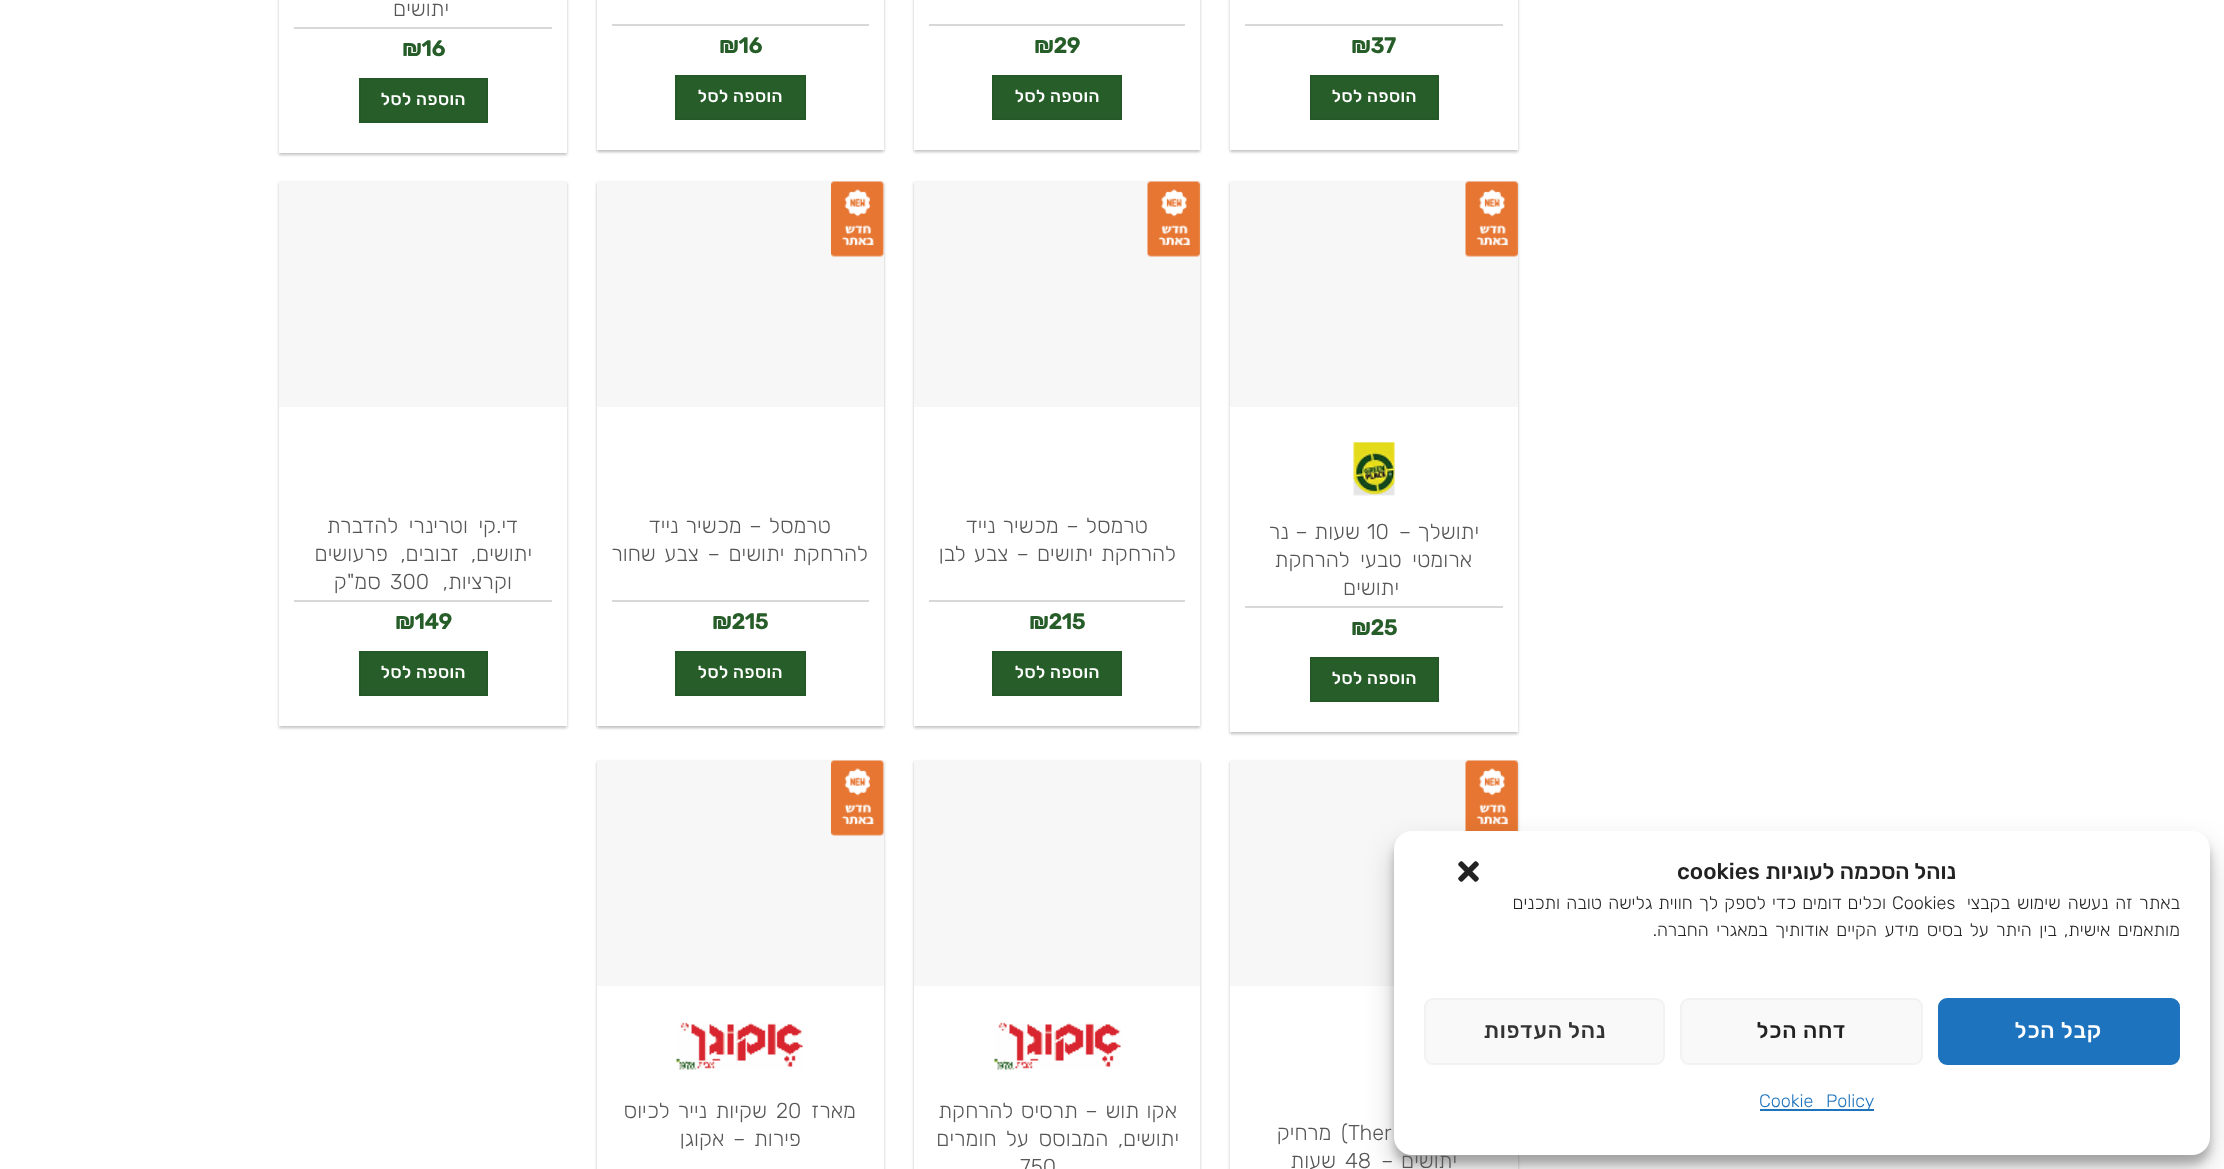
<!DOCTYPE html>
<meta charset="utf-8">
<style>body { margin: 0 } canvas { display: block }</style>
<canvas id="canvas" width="2224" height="1169"></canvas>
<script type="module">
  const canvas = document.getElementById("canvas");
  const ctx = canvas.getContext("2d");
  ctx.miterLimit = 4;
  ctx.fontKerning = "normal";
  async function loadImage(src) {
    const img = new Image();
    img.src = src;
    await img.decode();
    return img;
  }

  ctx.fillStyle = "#ffffff";
  ctx.fillRect(0, 0, 2224, 1169);
  ctx.save();
  ctx.beginPath();
  ctx.moveTo(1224, 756);
  ctx.lineTo(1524, 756);
  ctx.lineTo(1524, 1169);
  ctx.lineTo(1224, 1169);
  ctx.closePath();
  ctx.moveTo(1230, 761);
  ctx.lineTo(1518, 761);
  ctx.lineTo(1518, 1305);
  ctx.lineTo(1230, 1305);
  ctx.closePath();
  ctx.clip("evenodd");
  ctx.fillStyle = "rgba(0, 0, 0, 0.24)";
  ctx.filter = "blur(1.5px)";
  ctx.beginPath();
  ctx.rect(1230, 762, 288, 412);
  ctx.fill();
  ctx.filter = "none";
  ctx.restore();
  ctx.fillStyle = "#f7f7f7";
  ctx.fillRect(1230, 761, 288, 225);
  ctx.drawImage(await loadImage("img5.png"), 1465, 760, 53, 71);
  ctx.fillStyle = "rgba(0, 0, 0, 0.23)";
  ctx.filter = "blur(4.5px)";
  ctx.beginPath();
  ctx.roundRect(1394, 840, 816, 324, 18);
  ctx.fill();
  ctx.filter = "none";
  ctx.fillStyle = "rgba(0, 0, 0, 0.19)";
  ctx.filter = "blur(15px)";
  ctx.beginPath();
  ctx.roundRect(1394, 846, 816, 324, 18);
  ctx.fill();
  ctx.filter = "none";
  ctx.fillStyle = "#ffffff";
  ctx.beginPath();
  ctx.roundRect(1394, 831, 816, 324, 18);
  ctx.fill();
  ctx.direction = "rtl";
  ctx.font = "500 22.5px Rubik";
  ctx.fillStyle = "#222222";
  ctx.fillText("נוהל הסכמה לעוגיות", 1956, 879);
  ctx.direction = "ltr";
  ctx.fillText("cookies", 1677, 879);
  ctx.drawImage(await loadImage("img1.png"), 1458, 861, 21, 21);
  ctx.wordSpacing = "2.5px";
  ctx.direction = "rtl";
  ctx.font = "300 18px Rubik";
  ctx.fillText("באתר זה נעשה שימוש בקבצי", 2180, 909);
  ctx.wordSpacing = "0px";
  ctx.direction = "ltr";
  ctx.fillText("Cookies", 1892, 909);
  ctx.wordSpacing = "1.5px";
  ctx.direction = "rtl";
  ctx.fillText("וכלים דומים כדי לספק לך חווית גלישה טובה ותכנים", 1886, 909);
  ctx.wordSpacing = "2.9px";
  ctx.fillText("מותאמים אישית, בין היתר על בסיס מידע הקיים אודותיך במאגרי החברה.", 2180, 936);
  ctx.fillStyle = "#1e73be";
  ctx.beginPath();
  ctx.roundRect(1939, 999, 240, 65, 8);
  ctx.fill();
  ctx.strokeStyle = "#1e73be";
  ctx.lineWidth = 2;
  ctx.stroke();
  ctx.letterSpacing = "0.75px";
  ctx.wordSpacing = "0px";
  ctx.font = "500 22.5px Rubik";
  ctx.fillStyle = "#ffffff";
  ctx.fillText("קבל הכל", 2102, 1038);
  ctx.fillStyle = "#f9f9f9";
  ctx.beginPath();
  ctx.roundRect(1681, 999, 241, 65, 8);
  ctx.fill();
  ctx.strokeStyle = "#f2f2f2";
  ctx.stroke();
  ctx.fillStyle = "#222222";
  ctx.fillText("דחה הכל", 1846, 1038);
  ctx.fillStyle = "#f9f9f9";
  ctx.beginPath();
  ctx.roundRect(1425, 999, 239, 65, 8);
  ctx.fill();
  ctx.stroke();
  ctx.fillStyle = "#333333";
  ctx.fillText("נהל העדפות", 1606, 1038);
  ctx.fillStyle = "#1e73be";
  ctx.fillRect(1760, 1109, 114, 2);
  ctx.letterSpacing = "0px";
  ctx.wordSpacing = "8px";
  ctx.direction = "ltr";
  ctx.font = "300 18px Rubik";
  ctx.fillText("Cookie Policy", 1759, 1107);
  ctx.save();
  ctx.beginPath();
  ctx.moveTo(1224, 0);
  ctx.lineTo(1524, 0);
  ctx.lineTo(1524, 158);
  ctx.lineTo(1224, 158);
  ctx.closePath();
  ctx.moveTo(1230, -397);
  ctx.lineTo(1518, -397);
  ctx.lineTo(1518, 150);
  ctx.lineTo(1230, 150);
  ctx.closePath();
  ctx.clip("evenodd");
  ctx.fillStyle = "rgba(0, 0, 0, 0.24)";
  ctx.filter = "blur(1.5px)";
  ctx.beginPath();
  ctx.rect(1230, -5, 288, 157);
  ctx.fill();
  ctx.filter = "none";
  ctx.restore();
  ctx.fillStyle = "#d8d8d8";
  ctx.fillRect(1245, 24, 258, 2);
  ctx.wordSpacing = "0px";
  ctx.font = "bold 21.6px Rubik";
  ctx.fillStyle = "#275d29";
  ctx.fillText("₪37", 1351, 53);
  ctx.beginPath();
  ctx.rect(1311, 76, 127, 43);
  ctx.fill();
  ctx.strokeStyle = "#255827";
  ctx.stroke();
  ctx.letterSpacing = "0.5px";
  ctx.direction = "rtl";
  ctx.font = "500 17.25px Rubik";
  ctx.fillStyle = "#ffffff";
  ctx.fillText("הוספה לסל", 1417, 102);
  ctx.save();
  ctx.beginPath();
  ctx.moveTo(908, 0);
  ctx.lineTo(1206, 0);
  ctx.lineTo(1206, 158);
  ctx.lineTo(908, 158);
  ctx.closePath();
  ctx.moveTo(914, -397);
  ctx.lineTo(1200, -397);
  ctx.lineTo(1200, 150);
  ctx.lineTo(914, 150);
  ctx.closePath();
  ctx.clip("evenodd");
  ctx.fillStyle = "rgba(0, 0, 0, 0.24)";
  ctx.filter = "blur(1.5px)";
  ctx.beginPath();
  ctx.rect(914, -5, 286, 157);
  ctx.fill();
  ctx.filter = "none";
  ctx.restore();
  ctx.fillStyle = "#d8d8d8";
  ctx.fillRect(929, 24, 256, 2);
  ctx.letterSpacing = "0px";
  ctx.direction = "ltr";
  ctx.font = "bold 21.6px Rubik";
  ctx.fillStyle = "#275d29";
  ctx.fillText("₪29", 1034, 53);
  ctx.beginPath();
  ctx.rect(993, 76, 128, 43);
  ctx.fill();
  ctx.stroke();
  ctx.letterSpacing = "0.5px";
  ctx.direction = "rtl";
  ctx.font = "500 17.25px Rubik";
  ctx.fillStyle = "#ffffff";
  ctx.fillText("הוספה לסל", 1100, 102);
  ctx.fillStyle = "rgba(0, 0, 0, 0.24)";
  ctx.filter = "blur(1.5px)";
  ctx.beginPath();
  ctx.rect(597, -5, 287, 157);
  ctx.fill();
  ctx.filter = "none";
  ctx.fillStyle = "rgba(0, 0, 0, 0.12)";
  ctx.filter = "blur(2px)";
  ctx.beginPath();
  ctx.rect(600, -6, 281, 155);
  ctx.fill();
  ctx.filter = "none";
  ctx.fillStyle = "#ffffff";
  ctx.fillRect(597, 0, 287, 150);
  ctx.fillStyle = "#d8d8d8";
  ctx.fillRect(612, 24, 257, 2);
  ctx.letterSpacing = "0px";
  ctx.direction = "ltr";
  ctx.font = "bold 21.6px Rubik";
  ctx.fillStyle = "#275d29";
  ctx.fillText("₪16", 719, 53);
  ctx.beginPath();
  ctx.rect(676, 76, 129, 43);
  ctx.fill();
  ctx.stroke();
  ctx.letterSpacing = "0.5px";
  ctx.direction = "rtl";
  ctx.font = "500 17.25px Rubik";
  ctx.fillStyle = "#ffffff";
  ctx.fillText("הוספה לסל", 783, 102);
  ctx.save();
  ctx.beginPath();
  ctx.moveTo(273, 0);
  ctx.lineTo(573, 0);
  ctx.lineTo(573, 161);
  ctx.lineTo(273, 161);
  ctx.closePath();
  ctx.moveTo(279, -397);
  ctx.lineTo(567, -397);
  ctx.lineTo(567, 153);
  ctx.lineTo(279, 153);
  ctx.closePath();
  ctx.clip("evenodd");
  ctx.fillStyle = "rgba(0, 0, 0, 0.24)";
  ctx.filter = "blur(1.5px)";
  ctx.beginPath();
  ctx.rect(279, -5, 288, 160);
  ctx.fill();
  ctx.filter = "none";
  ctx.restore();
  ctx.fillStyle = "#d8d8d8";
  ctx.fillRect(294, 27, 258, 2);
  ctx.letterSpacing = "0px";
  ctx.font = "300 21.6px Rubik";
  ctx.fillStyle = "#565656";
  ctx.fillText("יתושים", 449, 16);
  ctx.direction = "ltr";
  ctx.font = "bold 21.6px Rubik";
  ctx.fillStyle = "#275d29";
  ctx.fillText("₪16", 402, 56);
  ctx.beginPath();
  ctx.rect(360, 79, 127, 43);
  ctx.fill();
  ctx.stroke();
  ctx.letterSpacing = "0.5px";
  ctx.direction = "rtl";
  ctx.font = "500 17.25px Rubik";
  ctx.fillStyle = "#ffffff";
  ctx.fillText("הוספה לסל", 466, 105);
  ctx.save();
  ctx.beginPath();
  ctx.moveTo(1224, 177);
  ctx.lineTo(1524, 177);
  ctx.lineTo(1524, 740);
  ctx.lineTo(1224, 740);
  ctx.closePath();
  ctx.moveTo(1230, 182);
  ctx.lineTo(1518, 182);
  ctx.lineTo(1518, 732);
  ctx.lineTo(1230, 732);
  ctx.closePath();
  ctx.clip("evenodd");
  ctx.fillStyle = "rgba(0, 0, 0, 0.24)";
  ctx.filter = "blur(1.5px)";
  ctx.beginPath();
  ctx.rect(1230, 183, 288, 551);
  ctx.fill();
  ctx.filter = "none";
  ctx.restore();
  ctx.fillStyle = "#f7f7f7";
  ctx.fillRect(1230, 182, 288, 225);
  ctx.drawImage(await loadImage("img2.png"), 1465, 181, 53, 76);
  ctx.drawImage(await loadImage("img3.png"), 1353, 442, 42, 54);
  ctx.fillStyle = "#d8d8d8";
  ctx.fillRect(1245, 606, 258, 2);
  ctx.letterSpacing = "0px";
  ctx.wordSpacing = "1px";
  ctx.font = "300 21.6px Rubik";
  ctx.fillStyle = "#565656";
  ctx.fillText("יתושלך –", 1479, 539);
  ctx.wordSpacing = "0px";
  ctx.direction = "ltr";
  ctx.fillText("10", 1367, 539);
  ctx.wordSpacing = "1px";
  ctx.direction = "rtl";
  ctx.fillText("שעות – נר", 1360, 539);
  ctx.wordSpacing = "5px";
  ctx.fillText("ארומטי טבעי להרחקת", 1472, 567);
  ctx.wordSpacing = "0px";
  ctx.fillText("יתושים", 1399, 595);
  ctx.direction = "ltr";
  ctx.font = "bold 21.6px Rubik";
  ctx.fillStyle = "#275d29";
  ctx.fillText("₪25", 1351, 635);
  ctx.beginPath();
  ctx.rect(1311, 658, 127, 43);
  ctx.fill();
  ctx.stroke();
  ctx.letterSpacing = "0.5px";
  ctx.direction = "rtl";
  ctx.font = "500 17.25px Rubik";
  ctx.fillStyle = "#ffffff";
  ctx.fillText("הוספה לסל", 1417, 684);
  ctx.save();
  ctx.beginPath();
  ctx.moveTo(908, 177);
  ctx.lineTo(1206, 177);
  ctx.lineTo(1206, 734);
  ctx.lineTo(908, 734);
  ctx.closePath();
  ctx.moveTo(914, 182);
  ctx.lineTo(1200, 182);
  ctx.lineTo(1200, 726);
  ctx.lineTo(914, 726);
  ctx.closePath();
  ctx.clip("evenodd");
  ctx.fillStyle = "rgba(0, 0, 0, 0.24)";
  ctx.filter = "blur(1.5px)";
  ctx.beginPath();
  ctx.rect(914, 183, 286, 545);
  ctx.fill();
  ctx.filter = "none";
  ctx.restore();
  ctx.fillStyle = "#f7f7f7";
  ctx.fillRect(914, 182, 286, 225);
  ctx.drawImage(await loadImage("img2.png"), 1147, 181, 53, 76);
  ctx.fillStyle = "#d8d8d8";
  ctx.fillRect(929, 600, 256, 2);
  ctx.letterSpacing = "0px";
  ctx.wordSpacing = "2px";
  ctx.font = "300 21.6px Rubik";
  ctx.fillStyle = "#565656";
  ctx.fillText("טרמסל – מכשיר נייד", 1148, 533);
  ctx.wordSpacing = "2.5px";
  ctx.fillText("להרחקת יתושים – צבע לבן", 1176, 561);
  ctx.wordSpacing = "0px";
  ctx.direction = "ltr";
  ctx.font = "bold 21.6px Rubik";
  ctx.fillStyle = "#275d29";
  ctx.fillText("₪215", 1029, 629);
  ctx.beginPath();
  ctx.rect(993, 652, 128, 43);
  ctx.fill();
  ctx.stroke();
  ctx.letterSpacing = "0.5px";
  ctx.direction = "rtl";
  ctx.font = "500 17.25px Rubik";
  ctx.fillStyle = "#ffffff";
  ctx.fillText("הוספה לסל", 1100, 678);
  ctx.fillStyle = "rgba(0, 0, 0, 0.24)";
  ctx.filter = "blur(1.5px)";
  ctx.beginPath();
  ctx.rect(597, 183, 287, 545);
  ctx.fill();
  ctx.filter = "none";
  ctx.fillStyle = "rgba(0, 0, 0, 0.12)";
  ctx.filter = "blur(2px)";
  ctx.beginPath();
  ctx.rect(600, 186, 281, 539);
  ctx.fill();
  ctx.filter = "none";
  ctx.fillStyle = "#ffffff";
  ctx.fillRect(597, 407, 287, 319);
  ctx.fillStyle = "#f7f7f7";
  ctx.fillRect(597, 182, 287, 225);
  ctx.drawImage(await loadImage("img4.png"), 831, 181, 53, 76);
  ctx.fillStyle = "#d8d8d8";
  ctx.fillRect(612, 600, 257, 2);
  ctx.letterSpacing = "0px";
  ctx.wordSpacing = "2px";
  ctx.font = "300 21.6px Rubik";
  ctx.fillStyle = "#565656";
  ctx.fillText("טרמסל – מכשיר נייד", 831, 533);
  ctx.wordSpacing = "3px";
  ctx.fillText("להרחקת יתושים – צבע שחור", 868, 561);
  ctx.wordSpacing = "0px";
  ctx.direction = "ltr";
  ctx.font = "bold 21.6px Rubik";
  ctx.fillStyle = "#275d29";
  ctx.fillText("₪215", 712, 629);
  ctx.beginPath();
  ctx.rect(676, 652, 129, 43);
  ctx.fill();
  ctx.stroke();
  ctx.letterSpacing = "0.5px";
  ctx.direction = "rtl";
  ctx.font = "500 17.25px Rubik";
  ctx.fillStyle = "#ffffff";
  ctx.fillText("הוספה לסל", 783, 678);
  ctx.save();
  ctx.beginPath();
  ctx.moveTo(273, 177);
  ctx.lineTo(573, 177);
  ctx.lineTo(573, 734);
  ctx.lineTo(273, 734);
  ctx.closePath();
  ctx.moveTo(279, 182);
  ctx.lineTo(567, 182);
  ctx.lineTo(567, 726);
  ctx.lineTo(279, 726);
  ctx.closePath();
  ctx.clip("evenodd");
  ctx.fillStyle = "rgba(0, 0, 0, 0.24)";
  ctx.filter = "blur(1.5px)";
  ctx.beginPath();
  ctx.rect(279, 183, 288, 545);
  ctx.fill();
  ctx.filter = "none";
  ctx.restore();
  ctx.fillStyle = "#f7f7f7";
  ctx.fillRect(279, 182, 288, 225);
  ctx.fillStyle = "#d8d8d8";
  ctx.fillRect(294, 600, 258, 2);
  ctx.letterSpacing = "0px";
  ctx.wordSpacing = "5px";
  ctx.font = "300 21.6px Rubik";
  ctx.fillStyle = "#565656";
  ctx.fillText("די.קי וטרינרי להדברת", 518, 533);
  ctx.wordSpacing = "7px";
  ctx.fillText("יתושים, זבובים, פרעושים", 532, 561);
  ctx.wordSpacing = "0px";
  ctx.fillText("וקרציות,", 512, 589);
  ctx.direction = "ltr";
  ctx.fillText("300", 390, 589);
  ctx.direction = "rtl";
  ctx.fillText("סמ\"ק", 381, 589);
  ctx.direction = "ltr";
  ctx.font = "bold 21.6px Rubik";
  ctx.fillStyle = "#275d29";
  ctx.fillText("₪149", 395, 629);
  ctx.beginPath();
  ctx.rect(360, 652, 127, 43);
  ctx.fill();
  ctx.stroke();
  ctx.letterSpacing = "0.5px";
  ctx.direction = "rtl";
  ctx.font = "500 17.25px Rubik";
  ctx.fillStyle = "#ffffff";
  ctx.fillText("הוספה לסל", 466, 678);
  ctx.letterSpacing = "0px";
  ctx.direction = "ltr";
  ctx.font = "300 21.6px Rubik";
  ctx.fillStyle = "#565656";
  ctx.fillText("Ther", 1348, 1140);
  ctx.wordSpacing = "4px";
  ctx.direction = "rtl";
  ctx.fillText(") מרחיק", 1348, 1140);
  ctx.wordSpacing = "2px";
  ctx.fillText("יתושים –", 1457, 1168);
  ctx.wordSpacing = "0px";
  ctx.direction = "ltr";
  ctx.fillText("48", 1345, 1168);
  ctx.direction = "rtl";
  ctx.fillText("שעות", 1336, 1168);
  ctx.save();
  ctx.beginPath();
  ctx.moveTo(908, 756);
  ctx.lineTo(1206, 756);
  ctx.lineTo(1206, 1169);
  ctx.lineTo(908, 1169);
  ctx.closePath();
  ctx.moveTo(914, 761);
  ctx.lineTo(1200, 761);
  ctx.lineTo(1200, 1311);
  ctx.lineTo(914, 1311);
  ctx.closePath();
  ctx.clip("evenodd");
  ctx.fillStyle = "rgba(0, 0, 0, 0.24)";
  ctx.filter = "blur(1.5px)";
  ctx.beginPath();
  ctx.rect(914, 762, 286, 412);
  ctx.fill();
  ctx.filter = "none";
  ctx.restore();
  ctx.fillStyle = "#f7f7f7";
  ctx.fillRect(914, 761, 286, 225);
  ctx.drawImage(await loadImage("img6.png"), 994, 1022, 127, 48);
  ctx.wordSpacing = "2px";
  ctx.fillStyle = "#565656";
  ctx.fillText("אקו תוש – תרסיס להרחקת", 1177, 1118);
  ctx.wordSpacing = "4px";
  ctx.fillText("יתושים, המבוסס על חומרים", 1179, 1146);
  ctx.wordSpacing = "0px";
  ctx.direction = "ltr";
  ctx.fillText("750", 1020, 1174);
  ctx.fillStyle = "rgba(0, 0, 0, 0.24)";
  ctx.filter = "blur(1.5px)";
  ctx.beginPath();
  ctx.rect(597, 762, 287, 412);
  ctx.fill();
  ctx.filter = "none";
  ctx.fillStyle = "#ffffff";
  ctx.fillRect(597, 986, 287, 183);
  ctx.fillStyle = "#f7f7f7";
  ctx.fillRect(597, 761, 287, 225);
  ctx.drawImage(await loadImage("img7.png"), 831, 760, 53, 76);
  ctx.drawImage(await loadImage("img8.png"), 676, 1022, 127, 48);
  ctx.direction = "rtl";
  ctx.fillStyle = "#565656";
  ctx.fillText("מארז", 856, 1118);
  ctx.direction = "ltr";
  ctx.fillText("20", 776, 1118);
  ctx.wordSpacing = "3px";
  ctx.direction = "rtl";
  ctx.fillText("שקיות נייר לכיוס", 767, 1118);
  ctx.fillText("פירות – אקוגן", 801, 1146);
</script>
